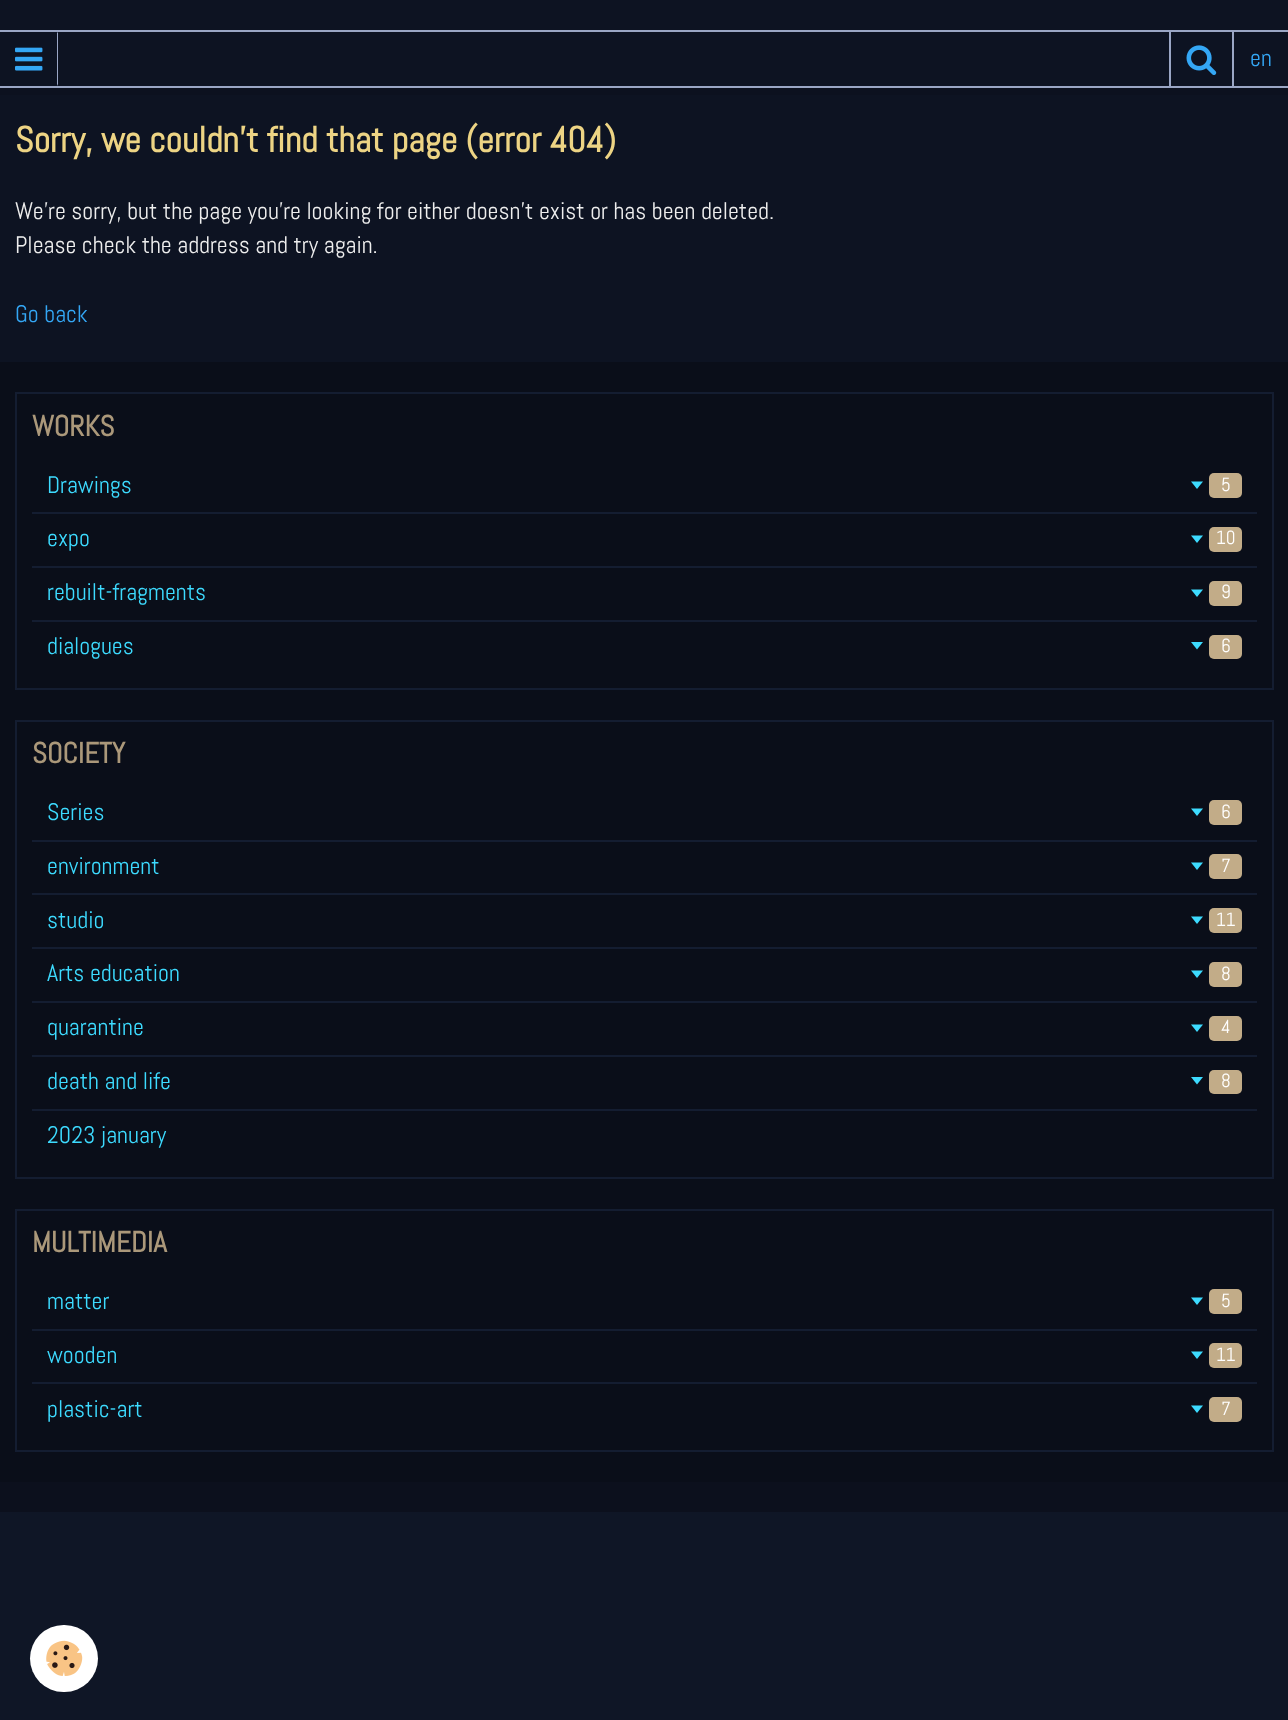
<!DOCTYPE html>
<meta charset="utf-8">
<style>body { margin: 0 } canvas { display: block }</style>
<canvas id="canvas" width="1288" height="1720"></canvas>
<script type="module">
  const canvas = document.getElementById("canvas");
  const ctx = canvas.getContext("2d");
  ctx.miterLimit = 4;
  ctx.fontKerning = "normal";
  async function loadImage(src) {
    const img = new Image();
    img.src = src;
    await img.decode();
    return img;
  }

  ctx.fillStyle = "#0f1626";
  ctx.fillRect(0, 0, 1288, 1720);
  ctx.fillStyle = "#0c111f";
  ctx.beginPath();
  ctx.moveTo(0, 87);
  ctx.lineTo(0, 95);
  ctx.lineTo(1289, 95);
  ctx.lineTo(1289, 8);
  ctx.lineTo(1288, 8);
  ctx.lineTo(1288, 87);
  ctx.closePath();
  ctx.fill();
  ctx.fillStyle = "#0d1322";
  ctx.fillRect(0, 0, 1288, 86);
  ctx.fillStyle = "#9aa6c5";
  ctx.fillRect(0, 30, 1288, 2);
  ctx.fillRect(0, 86, 1288, 2);
  ctx.beginPath();
  ctx.moveTo(58, 32);
  ctx.lineTo(58, 86);
  ctx.lineTo(57, 84);
  ctx.lineTo(57, 33);
  ctx.closePath();
  ctx.fill();
  ctx.drawImage(await loadImage("img1.png"), 15, 47, 28, 24);
  ctx.fillRect(1169, 32, 2, 54);
  ctx.drawImage(await loadImage("img2.png"), 1186, 45, 31, 30);
  ctx.fillRect(1232, 32, 2, 54);
  ctx.font = "24px Abel";
  ctx.fillStyle = "#34a7f5";
  ctx.fillText("en", 1250, 66);
  ctx.fillStyle = "#0d1322";
  ctx.fillRect(0, 95, 1288, 267);
  ctx.font = "bold 36px Abel";
  ctx.fillStyle = "#edd484";
  ctx.fillText("Sorry, we couldn't find that page (error 404)", 15, 152);
  ctx.font = "24px Abel";
  ctx.fillStyle = "#eeeeee";
  ctx.fillText("We're sorry, but the page you're looking for either doesn't exist or has been deleted.", 15, 219);
  ctx.fillText("Please check the address and try again.", 15, 253);
  ctx.fillStyle = "#34a7f5";
  ctx.fillText("Go back", 15, 322);
  ctx.fillStyle = "#0a0e19";
  ctx.fillRect(0, 362, 1288, 1120);
  ctx.strokeStyle = "#141d31";
  ctx.lineWidth = 2;
  ctx.strokeRect(16, 393, 1257, 296);
  ctx.font = "bold 29px Abel";
  ctx.fillStyle = "#ab987a";
  ctx.fillText("WORKS", 32, 436);
  ctx.fillStyle = "#141d31";
  ctx.fillRect(32, 512, 1225, 2);
  ctx.font = "24px Abel";
  ctx.fillStyle = "#3ddbff";
  ctx.fillText("Drawings", 47, 493);
  ctx.beginPath();
  ctx.moveTo(1191, 481.5);
  ctx.lineTo(1203, 481.5);
  ctx.lineTo(1197, 489);
  ctx.closePath();
  ctx.fill();
  ctx.fillStyle = "#c2ac88";
  ctx.beginPath();
  ctx.roundRect(1209, 473, 33, 25, 5);
  ctx.fill();
  ctx.font = "19px Abel";
  ctx.fillStyle = "#ffffff";
  ctx.fillText("5", 1221, 491);
  ctx.fillStyle = "#141d31";
  ctx.fillRect(32, 566, 1225, 2);
  ctx.font = "24px Abel";
  ctx.fillStyle = "#3ddbff";
  ctx.fillText("expo", 47, 546);
  ctx.beginPath();
  ctx.moveTo(1191, 535.5);
  ctx.lineTo(1203, 535.5);
  ctx.lineTo(1197, 543);
  ctx.closePath();
  ctx.fill();
  ctx.fillStyle = "#c2ac88";
  ctx.beginPath();
  ctx.roundRect(1209, 527, 33, 25, 5);
  ctx.fill();
  ctx.font = "19px Abel";
  ctx.fillStyle = "#ffffff";
  ctx.fillText("10", 1216, 544);
  ctx.fillStyle = "#141d31";
  ctx.fillRect(32, 620, 1225, 2);
  ctx.font = "24px Abel";
  ctx.fillStyle = "#3ddbff";
  ctx.fillText("rebuilt-fragments", 47, 600);
  ctx.beginPath();
  ctx.moveTo(1191, 589.5);
  ctx.lineTo(1203, 589.5);
  ctx.lineTo(1197, 597);
  ctx.closePath();
  ctx.fill();
  ctx.fillStyle = "#c2ac88";
  ctx.beginPath();
  ctx.roundRect(1209, 581, 33, 25, 5);
  ctx.fill();
  ctx.font = "19px Abel";
  ctx.fillStyle = "#ffffff";
  ctx.fillText("9", 1221, 598);
  ctx.font = "24px Abel";
  ctx.fillStyle = "#3ddbff";
  ctx.fillText("dialogues", 47, 654);
  ctx.beginPath();
  ctx.moveTo(1191, 642);
  ctx.lineTo(1203, 642);
  ctx.lineTo(1197, 649.5);
  ctx.closePath();
  ctx.fill();
  ctx.fillStyle = "#c2ac88";
  ctx.beginPath();
  ctx.roundRect(1209, 635, 33, 24, 5);
  ctx.fill();
  ctx.font = "19px Abel";
  ctx.fillStyle = "#ffffff";
  ctx.fillText("6", 1221, 652);
  ctx.strokeRect(16, 721, 1257, 457);
  ctx.font = "bold 29px Abel";
  ctx.fillStyle = "#ab987a";
  ctx.fillText("SOCIETY", 32, 763);
  ctx.fillStyle = "#141d31";
  ctx.fillRect(32, 840, 1225, 2);
  ctx.font = "24px Abel";
  ctx.fillStyle = "#3ddbff";
  ctx.fillText("Series", 47, 820);
  ctx.beginPath();
  ctx.moveTo(1191, 808.5);
  ctx.lineTo(1203, 808.5);
  ctx.lineTo(1197, 816);
  ctx.closePath();
  ctx.fill();
  ctx.fillStyle = "#c2ac88";
  ctx.beginPath();
  ctx.roundRect(1209, 800, 33, 25, 5);
  ctx.fill();
  ctx.font = "19px Abel";
  ctx.fillStyle = "#ffffff";
  ctx.fillText("6", 1221, 818);
  ctx.fillStyle = "#141d31";
  ctx.fillRect(32, 893, 1225, 2);
  ctx.font = "24px Abel";
  ctx.fillStyle = "#3ddbff";
  ctx.fillText("environment", 47, 874);
  ctx.beginPath();
  ctx.moveTo(1191, 862.5);
  ctx.lineTo(1203, 862.5);
  ctx.lineTo(1197, 870);
  ctx.closePath();
  ctx.fill();
  ctx.fillStyle = "#c2ac88";
  ctx.beginPath();
  ctx.roundRect(1209, 854, 33, 25, 5);
  ctx.fill();
  ctx.font = "19px Abel";
  ctx.fillStyle = "#ffffff";
  ctx.fillText("7", 1221, 872);
  ctx.fillStyle = "#141d31";
  ctx.fillRect(32, 947, 1225, 2);
  ctx.font = "24px Abel";
  ctx.fillStyle = "#3ddbff";
  ctx.fillText("studio", 47, 928);
  ctx.beginPath();
  ctx.moveTo(1191, 916.5);
  ctx.lineTo(1203, 916.5);
  ctx.lineTo(1197, 924);
  ctx.closePath();
  ctx.fill();
  ctx.fillStyle = "#c2ac88";
  ctx.beginPath();
  ctx.roundRect(1209, 908, 33, 25, 5);
  ctx.fill();
  ctx.font = "19px Abel";
  ctx.fillStyle = "#ffffff";
  ctx.fillText("11", 1216, 926);
  ctx.fillStyle = "#141d31";
  ctx.fillRect(32, 1001, 1225, 2);
  ctx.font = "24px Abel";
  ctx.fillStyle = "#3ddbff";
  ctx.fillText("Arts education", 47, 981);
  ctx.beginPath();
  ctx.moveTo(1191, 970.5);
  ctx.lineTo(1203, 970.5);
  ctx.lineTo(1197, 978);
  ctx.closePath();
  ctx.fill();
  ctx.fillStyle = "#c2ac88";
  ctx.beginPath();
  ctx.roundRect(1209, 962, 33, 25, 5);
  ctx.fill();
  ctx.font = "19px Abel";
  ctx.fillStyle = "#ffffff";
  ctx.fillText("8", 1221, 980);
  ctx.fillStyle = "#141d31";
  ctx.fillRect(32, 1055, 1225, 2);
  ctx.font = "24px Abel";
  ctx.fillStyle = "#3ddbff";
  ctx.fillText("quarantine", 47, 1035);
  ctx.beginPath();
  ctx.moveTo(1191, 1024.5);
  ctx.lineTo(1203, 1024.5);
  ctx.lineTo(1197, 1032);
  ctx.closePath();
  ctx.fill();
  ctx.fillStyle = "#c2ac88";
  ctx.beginPath();
  ctx.roundRect(1209, 1016, 33, 25, 5);
  ctx.fill();
  ctx.font = "19px Abel";
  ctx.fillStyle = "#ffffff";
  ctx.fillText("4", 1221, 1033);
  ctx.fillStyle = "#141d31";
  ctx.fillRect(32, 1109, 1225, 2);
  ctx.font = "24px Abel";
  ctx.fillStyle = "#3ddbff";
  ctx.fillText("death and life", 47, 1089);
  ctx.beginPath();
  ctx.moveTo(1191, 1077);
  ctx.lineTo(1203, 1077);
  ctx.lineTo(1197, 1084.5);
  ctx.closePath();
  ctx.fill();
  ctx.fillStyle = "#c2ac88";
  ctx.beginPath();
  ctx.roundRect(1209, 1070, 33, 24, 5);
  ctx.fill();
  ctx.font = "19px Abel";
  ctx.fillStyle = "#ffffff";
  ctx.fillText("8", 1221, 1087);
  ctx.font = "24px Abel";
  ctx.fillStyle = "#3ddbff";
  ctx.fillText("2023 january", 47, 1143);
  ctx.strokeRect(16, 1210, 1257, 241);
  ctx.font = "bold 29px Abel";
  ctx.fillStyle = "#ab987a";
  ctx.fillText("MULTIMEDIA", 32, 1252);
  ctx.fillStyle = "#141d31";
  ctx.fillRect(32, 1329, 1225, 2);
  ctx.font = "24px Abel";
  ctx.fillStyle = "#3ddbff";
  ctx.fillText("matter", 47, 1309);
  ctx.beginPath();
  ctx.moveTo(1191, 1297.5);
  ctx.lineTo(1203, 1297.5);
  ctx.lineTo(1197, 1305);
  ctx.closePath();
  ctx.fill();
  ctx.fillStyle = "#c2ac88";
  ctx.beginPath();
  ctx.roundRect(1209, 1289, 33, 25, 5);
  ctx.fill();
  ctx.font = "19px Abel";
  ctx.fillStyle = "#ffffff";
  ctx.fillText("5", 1221, 1307);
  ctx.fillStyle = "#141d31";
  ctx.fillRect(32, 1382, 1225, 2);
  ctx.font = "24px Abel";
  ctx.fillStyle = "#3ddbff";
  ctx.fillText("wooden", 47, 1363);
  ctx.beginPath();
  ctx.moveTo(1191, 1351.5);
  ctx.lineTo(1203, 1351.5);
  ctx.lineTo(1197, 1359);
  ctx.closePath();
  ctx.fill();
  ctx.fillStyle = "#c2ac88";
  ctx.beginPath();
  ctx.roundRect(1209, 1343, 33, 25, 5);
  ctx.fill();
  ctx.font = "19px Abel";
  ctx.fillStyle = "#ffffff";
  ctx.fillText("11", 1216, 1361);
  ctx.font = "24px Abel";
  ctx.fillStyle = "#3ddbff";
  ctx.fillText("plastic-art", 47, 1417);
  ctx.beginPath();
  ctx.moveTo(1191, 1405.5);
  ctx.lineTo(1203, 1405.5);
  ctx.lineTo(1197, 1413);
  ctx.closePath();
  ctx.fill();
  ctx.fillStyle = "#c2ac88";
  ctx.beginPath();
  ctx.roundRect(1209, 1397, 33, 25, 5);
  ctx.fill();
  ctx.font = "19px Abel";
  ctx.fillStyle = "#ffffff";
  ctx.fillText("7", 1221, 1415);
  ctx.fillStyle = "#0c101d";
  ctx.fillRect(0, 1482, 1288, 30);
  ctx.fillStyle = "#ffffff";
  ctx.beginPath();
  ctx.roundRect(30, 1625, 68, 67, 33.5);
  ctx.fill();
  ctx.drawImage(await loadImage("img3.png"), 46, 1640, 37, 36);
</script>
